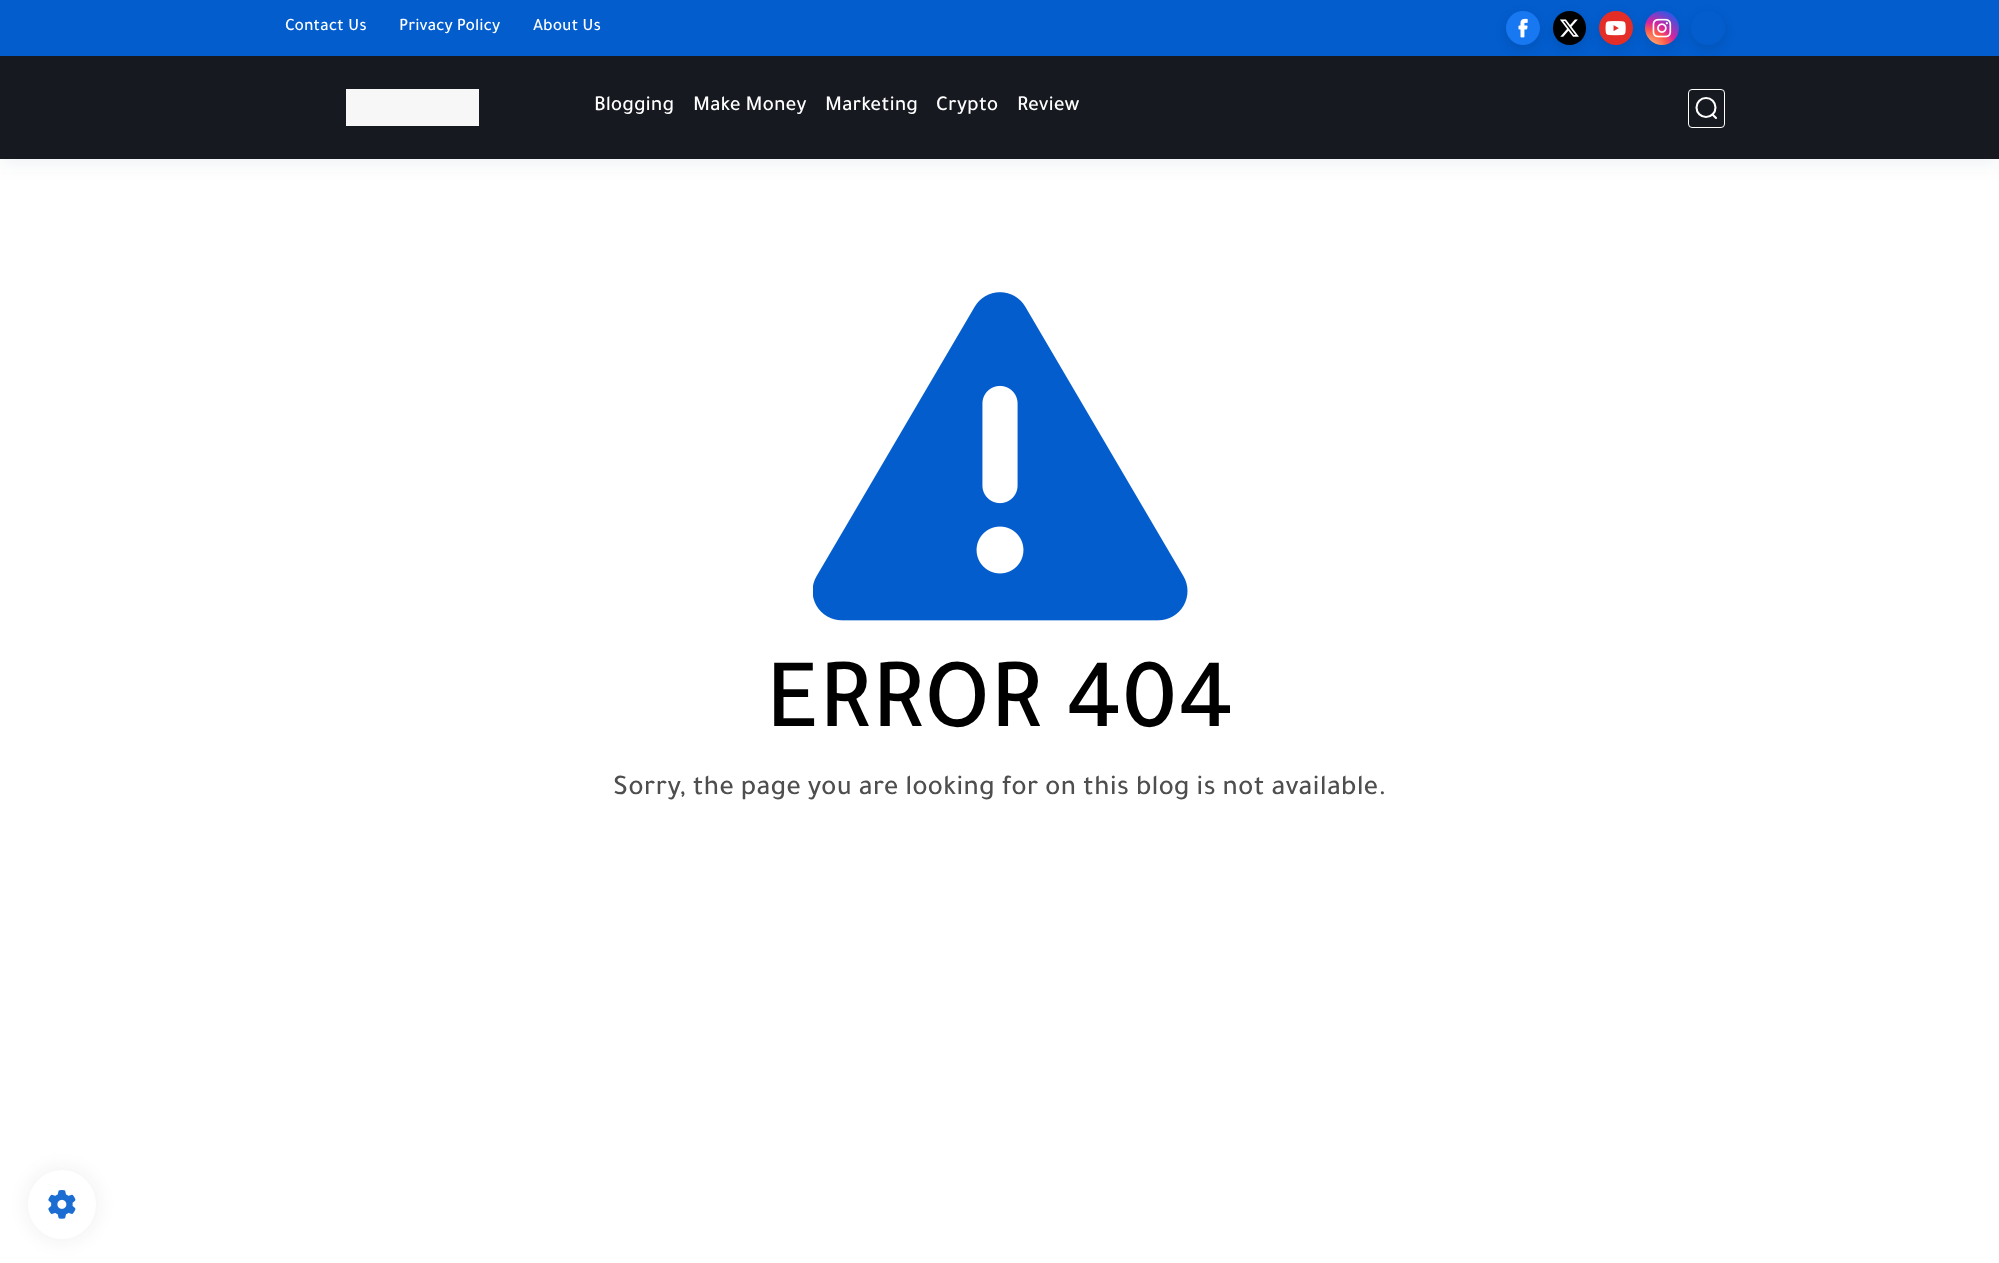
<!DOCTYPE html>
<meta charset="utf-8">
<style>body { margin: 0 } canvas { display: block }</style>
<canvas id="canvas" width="1999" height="1263"></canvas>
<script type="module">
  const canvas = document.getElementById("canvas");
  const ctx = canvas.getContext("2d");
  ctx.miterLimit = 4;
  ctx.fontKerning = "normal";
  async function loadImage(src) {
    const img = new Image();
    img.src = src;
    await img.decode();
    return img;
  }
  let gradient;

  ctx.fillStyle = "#ffffff";
  ctx.fillRect(0, 0, 1999, 1263);
  ctx.fillStyle = "rgba(9, 32, 76, 0.05)";
  ctx.filter = "blur(9px)";
  ctx.beginPath();
  ctx.rect(0, 8, 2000, 158);
  ctx.fill();
  ctx.filter = "none";
  ctx.fillStyle = "#171921";
  ctx.fillRect(0, 56, 1999, 103);
  ctx.fillStyle = "#035dcd";
  ctx.fillRect(0, 0, 1999, 56);
  ctx.font = "500 17.5px Tajawal";
  ctx.fillStyle = "#ffffff";
  ctx.fillText("Contact Us", 285, 30);
  ctx.fillText("Privacy Policy", 399, 30);
  ctx.fillText("About Us", 533, 30);
  ctx.fillStyle = "rgba(0, 0, 0, 0.1)";
  ctx.filter = "blur(6px)";
  ctx.beginPath();
  ctx.roundRect(1506, 15, 34, 34, 17);
  ctx.fill();
  ctx.filter = "none";
  ctx.fillStyle = "#1778f2";
  ctx.beginPath();
  ctx.arc(1523, 28, 17, 0, Math.PI * 2);
  ctx.fill();
  ctx.drawImage(await loadImage("img1.png"), 1518, 18, 10, 20);
  ctx.fillStyle = "rgba(0, 0, 0, 0.1)";
  ctx.filter = "blur(6px)";
  ctx.beginPath();
  ctx.roundRect(1553, 15, 33, 34, 16.5);
  ctx.fill();
  ctx.filter = "none";
  ctx.fillStyle = "#000000";
  ctx.beginPath();
  ctx.roundRect(1553, 11, 33, 34, 16.5);
  ctx.fill();
  ctx.drawImage(await loadImage("img2.png"), 1560, 19, 19, 18);
  ctx.fillStyle = "rgba(0, 0, 0, 0.1)";
  ctx.filter = "blur(6px)";
  ctx.beginPath();
  ctx.roundRect(1599, 15, 34, 34, 17);
  ctx.fill();
  ctx.filter = "none";
  ctx.fillStyle = "#e52d27";
  ctx.beginPath();
  ctx.arc(1616, 28, 17, 0, Math.PI * 2);
  ctx.fill();
  ctx.drawImage(await loadImage("img3.png"), 1605, 21, 21, 15);
  ctx.fillStyle = "rgba(0, 0, 0, 0.1)";
  ctx.filter = "blur(6px)";
  ctx.beginPath();
  ctx.roundRect(1645, 15, 34, 34, 17);
  ctx.fill();
  ctx.filter = "none";
  gradient = ctx.createRadialGradient(1645, 55, 0, 1645, 55, 55);
  gradient.addColorStop(0, "#fdf497");
  gradient.addColorStop(0.05, "#fdf497");
  gradient.addColorStop(0.45, "#fd5949");
  gradient.addColorStop(0.6, "#d6249f");
  gradient.addColorStop(0.9, "#285aeb");
  ctx.fillStyle = gradient;
  ctx.beginPath();
  ctx.arc(1662, 28, 17, 0, Math.PI * 2);
  ctx.fill();
  ctx.drawImage(await loadImage("img4.png"), 1652, 18, 20, 20);
  ctx.save();
  ctx.beginPath();
  ctx.moveTo(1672, 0);
  ctx.lineTo(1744, 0);
  ctx.lineTo(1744, 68);
  ctx.lineTo(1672, 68);
  ctx.closePath();
  ctx.moveTo(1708, 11);
  ctx.bezierCurveTo(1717.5, 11, 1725, 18.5, 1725, 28);
  ctx.bezierCurveTo(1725, 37.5, 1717.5, 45, 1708, 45);
  ctx.bezierCurveTo(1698.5, 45, 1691, 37.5, 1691, 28);
  ctx.bezierCurveTo(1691, 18.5, 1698.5, 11, 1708, 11);
  ctx.closePath();
  ctx.clip("evenodd");
  ctx.fillStyle = "rgba(0, 0, 0, 0.1)";
  ctx.filter = "blur(6px)";
  ctx.beginPath();
  ctx.roundRect(1691, 15, 34, 34, 17);
  ctx.fill();
  ctx.filter = "none";
  ctx.restore();
  ctx.fillStyle = "#f7f7f7";
  ctx.fillRect(346, 89, 133, 37);
  ctx.font = "500 21.25px Tajawal";
  ctx.fillStyle = "#ffffff";
  ctx.fillText("Blogging", 594, 110);
  ctx.fillText("Make Money", 693, 110);
  ctx.fillText("Marketing", 825, 110);
  ctx.fillText("Crypto", 936, 110);
  ctx.fillText("Review", 1017, 110);
  ctx.beginPath();
  ctx.roundRect(1688.5, 89.5, 36, 38, 3.5);
  ctx.strokeStyle = "#ffffff";
  ctx.stroke();
  ctx.beginPath();
  ctx.arc(1706, 107.5, 9.5, 0, Math.PI * 2);
  ctx.lineWidth = 2.1;
  ctx.stroke();
  ctx.beginPath();
  ctx.moveTo(1712.5, 114.5);
  ctx.lineTo(1716, 118);
  ctx.lineCap = "round";
  ctx.lineJoin = "round";
  ctx.stroke();
  ctx.drawImage(await loadImage("img5.png"), 813, 292, 375, 329);
  ctx.font = "500 100px Tajawal";
  ctx.fillStyle = "#000000";
  ctx.fillText("ERROR 404", 766, 726);
  ctx.font = "500 28.75px Tajawal";
  ctx.fillStyle = "#4e4e4e";
  ctx.fillText("Sorry, the page you are looking for on this blog is not available.", 613, 794);
  ctx.fillStyle = "rgba(26, 26, 26, 0.08)";
  ctx.filter = "blur(9.5px)";
  ctx.beginPath();
  ctx.roundRect(28, 1170, 68, 69, 34);
  ctx.fill();
  ctx.filter = "none";
  ctx.fillStyle = "#ffffff";
  ctx.beginPath();
  ctx.roundRect(28, 1170, 68, 69, 34);
  ctx.fill();
  ctx.drawImage(await loadImage("img6.png"), 48, 1190, 28, 29);
</script>
